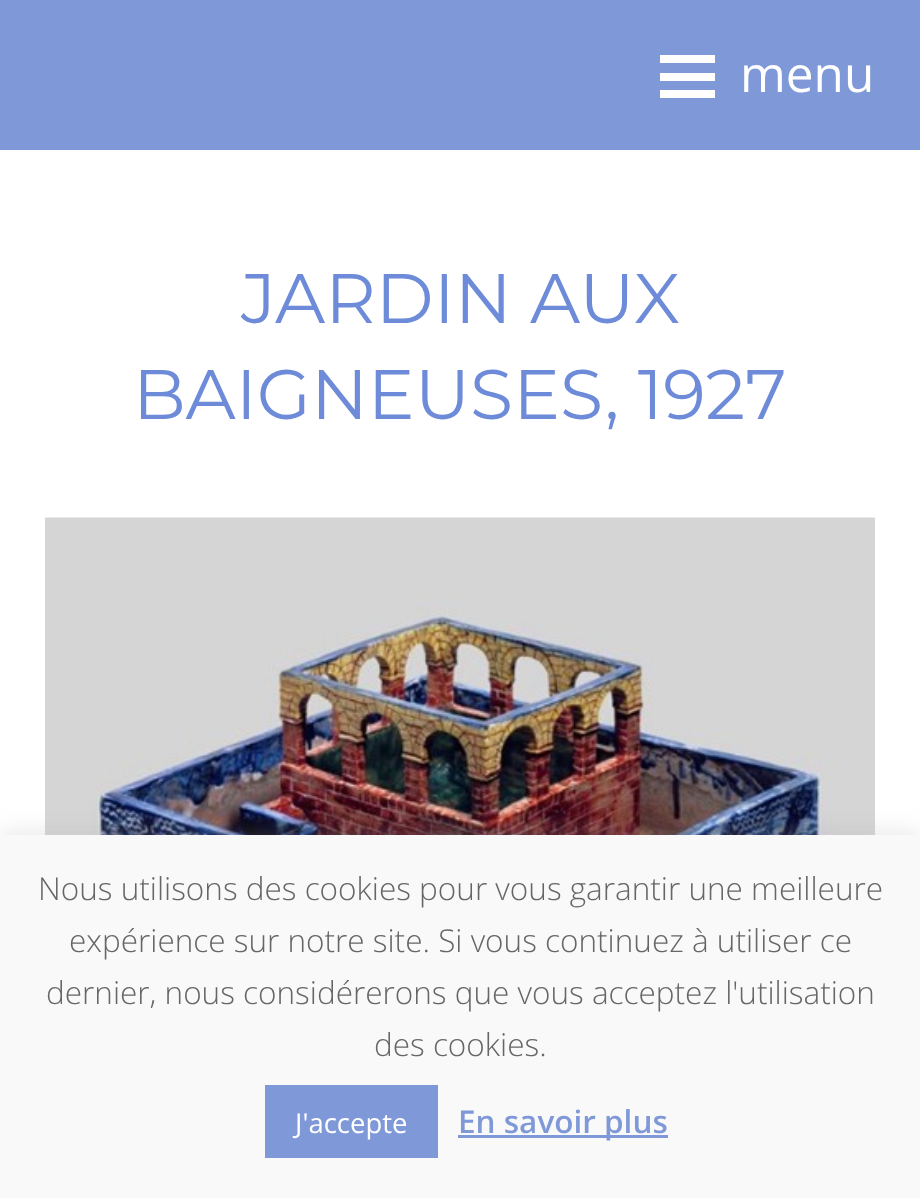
<!DOCTYPE html>
<meta charset="utf-8">
<style>body { margin: 0 } canvas { display: block }</style>
<canvas id="canvas" width="920" height="1198"></canvas>
<script type="module">
  const canvas = document.getElementById("canvas");
  const ctx = canvas.getContext("2d");
  ctx.miterLimit = 4;
  ctx.fontKerning = "normal";
  async function loadImage(src) {
    const img = new Image();
    img.src = src;
    await img.decode();
    return img;
  }

  ctx.fillStyle = "#ffffff";
  ctx.fillRect(0, 0, 920, 1198);
  ctx.fillStyle = "#7f98d8";
  ctx.fillRect(0, 0, 920, 150);
  ctx.fillStyle = "#ffffff";
  ctx.fillRect(660, 73, 55, 8);
  ctx.fillRect(660, 55, 55, 8);
  ctx.fillRect(660, 90, 55, 8);
  ctx.font = "49.5px Open Sans";
  ctx.fillText("menu", 740, 92);
  ctx.font = "70px Montserrat";
  ctx.fillStyle = "#6d8bd8";
  ctx.fillText("JARDIN AUX", 241, 323);
  ctx.fillText("BAIGNEUSES, 1927", 133, 419);
  ctx.drawImage(await loadImage("img1.png"), 45, 517, 830, 318);
  ctx.fillStyle = "rgba(172, 171, 171, 0.3)";
  ctx.filter = "blur(12.5px)";
  ctx.beginPath();
  ctx.rect(0, 833, 920, 365);
  ctx.fill();
  ctx.filter = "none";
  ctx.fillStyle = "#f9f9f9";
  ctx.fillRect(0, 835, 920, 363);
  ctx.font = "300 31.5px Open Sans";
  ctx.fillStyle = "#666666";
  ctx.fillText("Nous utilisons des cookies pour vous garantir une meilleure", 38, 900);
  ctx.fillText("expérience sur notre site. Si vous continuez à utiliser ce", 69, 952);
  ctx.fillText("dernier, nous considérerons que vous acceptez l'utilisation", 46, 1004);
  ctx.fillText("des cookies.", 374, 1056);
  ctx.fillStyle = "#7f98d8";
  ctx.fillRect(265, 1085, 173, 73);
  ctx.font = "27.5px Open Sans";
  ctx.fillStyle = "#ffffff";
  ctx.fillText("J'accepte", 295, 1133);
  ctx.fillStyle = "#7f98d8";
  ctx.fillRect(458, 1135, 210, 3);
  ctx.font = "600 31.5px Open Sans";
  ctx.fillText("En savoir plus", 458, 1133);
</script>
